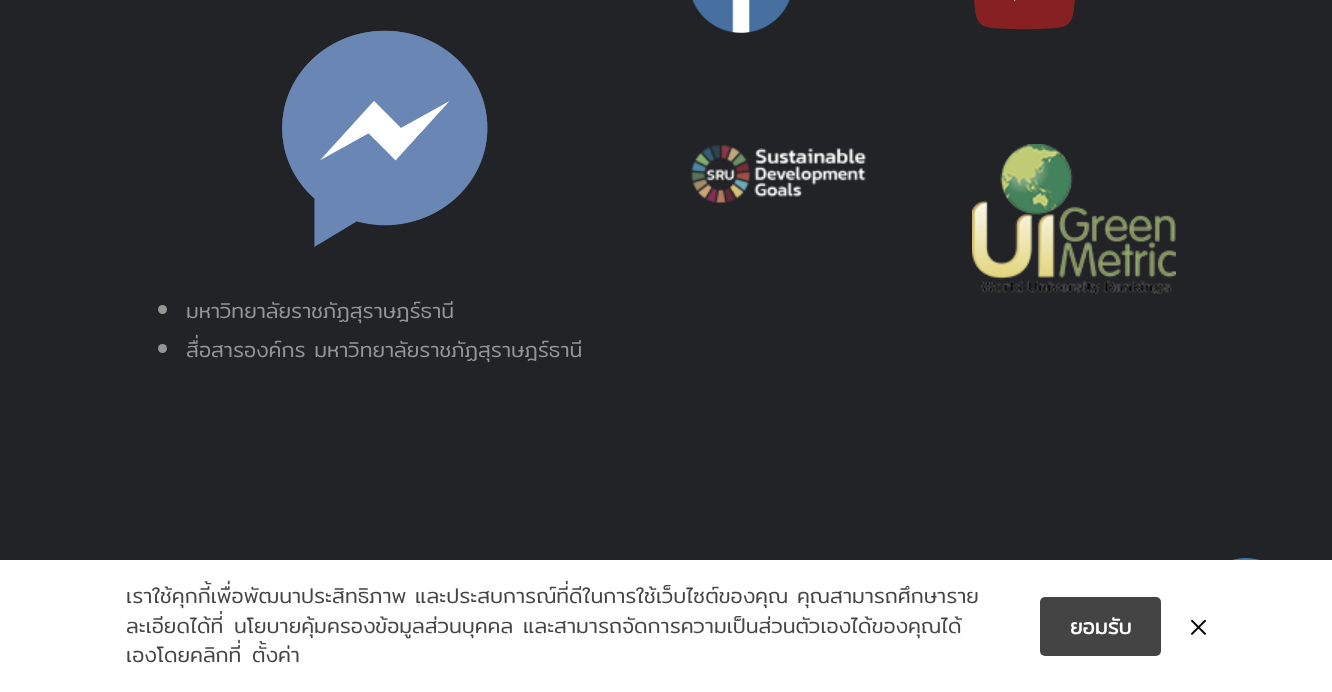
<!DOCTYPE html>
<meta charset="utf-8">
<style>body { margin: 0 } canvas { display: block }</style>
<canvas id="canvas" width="1332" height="692"></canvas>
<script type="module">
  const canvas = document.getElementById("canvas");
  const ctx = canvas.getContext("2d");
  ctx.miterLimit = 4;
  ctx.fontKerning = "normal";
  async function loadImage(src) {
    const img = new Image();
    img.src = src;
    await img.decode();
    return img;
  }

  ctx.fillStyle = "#222327";
  ctx.fillRect(0, 0, 1332, 692);
  ctx.drawImage(await loadImage("img1.png"), 692, 0, 98, 33);
  ctx.drawImage(await loadImage("img2.png"), 974, 0, 101, 30);
  ctx.drawImage(await loadImage("img3.png"), 691, 145, 175, 58);
  ctx.drawImage(await loadImage("img4.png"), 972, 144, 204, 150);
  ctx.drawImage(await loadImage("img5.png"), 282, 30, 206, 217);
  ctx.fillStyle = "#959595";
  ctx.beginPath();
  ctx.arc(162.5, 309.5, 4.5, 0, Math.PI * 2);
  ctx.fill();
  ctx.font = "300 21px Mitr";
  ctx.fillText("มหาวิทยาลัยราชภัฏสุราษฎร์ธานี", 186, 318);
  ctx.beginPath();
  ctx.arc(162.5, 348.5, 4.5, 0, Math.PI * 2);
  ctx.fill();
  ctx.fillText("สื่อสารองค์กร มหาวิทยาลัยราชภัฏสุราษฎร์ธานี", 186, 357);
  ctx.drawImage(await loadImage("img6.png"), 1232, 558, 28, 2);
  ctx.fillStyle = "#ffffff";
  ctx.fillRect(0, 560, 1332, 132);
  ctx.fillStyle = "#444444";
  ctx.fillText("เราใช้คุกกี้เพื่อพัฒนาประสิทธิภาพ และประสบการณ์ที่ดีในการใช้เว็บไซต์ของคุณ คุณสามารถศึกษาราย", 126, 603);
  ctx.fillText("ละเอียดได้ที่", 126, 633);
  ctx.fillText("นโยบายคุ้มครองข้อมูลส่วนบุคคล", 234, 633);
  ctx.fillText("และสามารถจัดการความเป็นส่วนตัวเองได้ของคุณได้", 523, 633);
  ctx.fillText("เองโดยคลิกที่", 126, 662);
  ctx.fillText("ตั้งค่า", 252, 662);
  ctx.beginPath();
  ctx.roundRect(1040, 597, 121, 59, 5);
  ctx.fill();
  ctx.font = "bold 21px Mitr";
  ctx.fillStyle = "#ffffff";
  ctx.fillText("ยอมรับ", 1070, 634);
  ctx.drawImage(await loadImage("img7.png"), 1191, 620, 15, 15);
</script>
